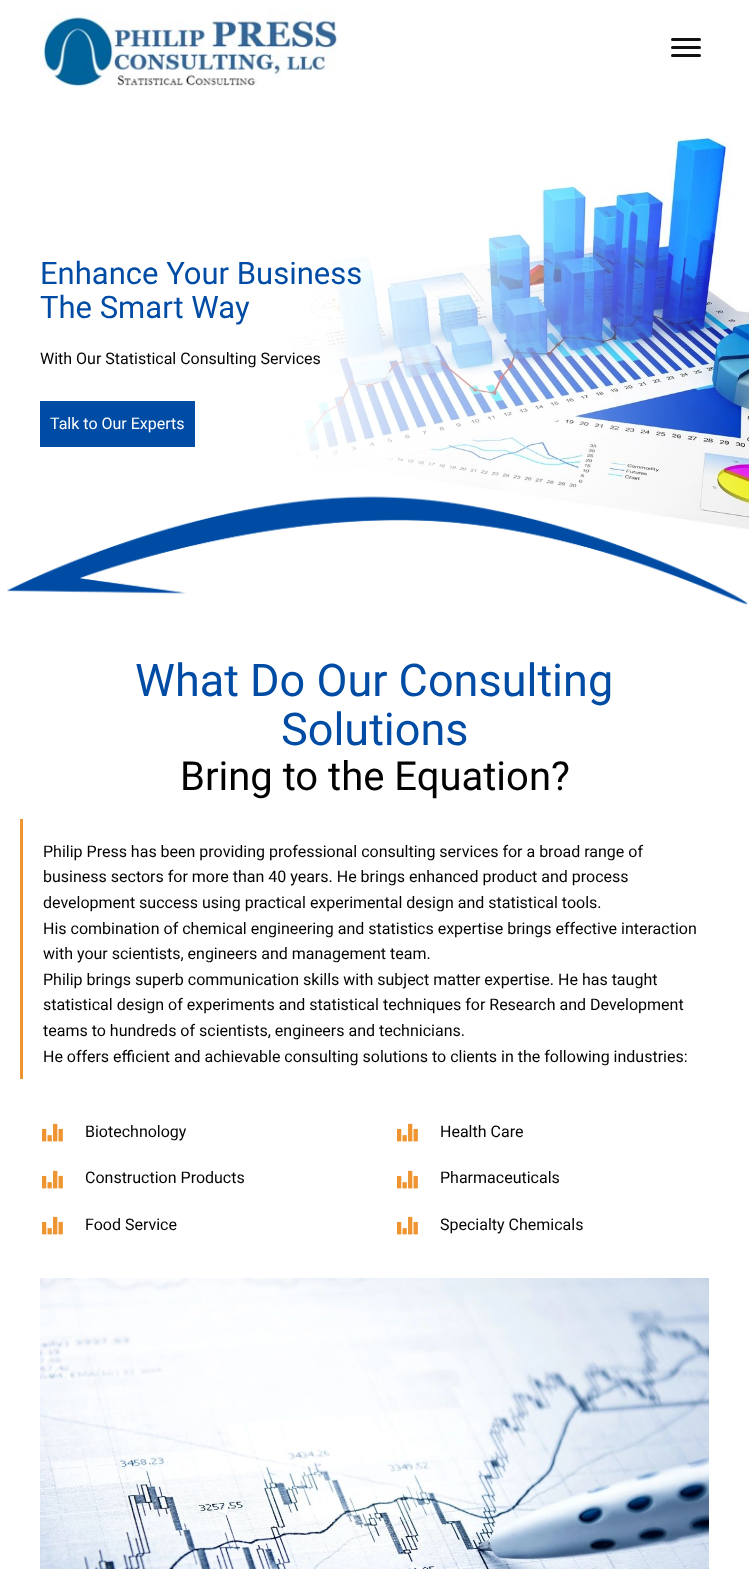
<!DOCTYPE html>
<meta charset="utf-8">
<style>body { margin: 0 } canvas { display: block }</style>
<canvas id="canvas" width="749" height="1569"></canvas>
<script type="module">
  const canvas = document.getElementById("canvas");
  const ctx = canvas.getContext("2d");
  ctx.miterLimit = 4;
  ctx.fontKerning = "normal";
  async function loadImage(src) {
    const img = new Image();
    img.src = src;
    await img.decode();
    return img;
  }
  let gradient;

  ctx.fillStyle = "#ffffff";
  ctx.fillRect(0, 0, 749, 1569);
  ctx.drawImage(await loadImage("img1.png"), 40, 7, 298, 80);
  ctx.fillStyle = "#111111";
  ctx.beginPath();
  ctx.roundRect(671, 46, 30, 3, 1.5);
  ctx.fill();
  ctx.beginPath();
  ctx.roundRect(671, 38, 30, 3, 1.5);
  ctx.fill();
  ctx.beginPath();
  ctx.roundRect(671, 54, 30, 3, 1.5);
  ctx.fill();
  ctx.drawImage(await loadImage("img2.png"), 287, 136, 462, 394);
  gradient = ctx.createLinearGradient(0, 356, 749, 356);
  gradient.addColorStop(0.38, "#ffffff");
  gradient.addColorStop(1, "rgba(255, 255, 255, 0)");
  ctx.fillStyle = gradient;
  ctx.fillRect(287, 138, 452, 376);
  ctx.font = "31px Roboto";
  ctx.fillStyle = "#004ca5";
  ctx.fillText("Enhance Your Business", 40, 284);
  ctx.fillText("The Smart Way", 40, 318);
  ctx.font = "16px Roboto";
  ctx.fillStyle = "#020202";
  ctx.fillText("With Our Statistical Consulting Services", 40, 364);
  ctx.fillStyle = "#004ca5";
  ctx.fillRect(40, 401, 155, 46);
  ctx.fillStyle = "#ffffff";
  ctx.fillText("Talk to Our Experts", 50, 429);
  ctx.drawImage(await loadImage("img3.png"), 7, 496, 741, 109);
  ctx.font = "45px Roboto";
  ctx.fillStyle = "#004ca5";
  ctx.fillText("What Do Our Consulting", 135, 696);
  ctx.fillText("Solutions", 281, 745);
  ctx.font = "40px Roboto";
  ctx.fillStyle = "#020202";
  ctx.fillText("Bring to the Equation?", 180, 790);
  ctx.fillStyle = "#ee9430";
  ctx.fillRect(20, 819, 3, 260);
  ctx.font = "16px Roboto";
  ctx.fillStyle = "#020202";
  ctx.fillText("Philip Press has been providing professional consulting services for a broad range of", 43, 857);
  ctx.fillText("business sectors for more than 40 years. He brings enhanced product and process", 43, 882);
  ctx.fillText("development success using practical experimental design and statistical tools.", 43, 908);
  ctx.fillText("His combination of chemical engineering and statistics expertise brings effective interaction", 43, 934);
  ctx.fillText("with your scientists, engineers and management team.", 43, 959);
  ctx.fillText("Philip brings superb communication skills with subject matter expertise. He has taught", 43, 985);
  ctx.fillText("statistical design of experiments and statistical techniques for Research and Development", 43, 1010);
  ctx.fillText("teams to hundreds of scientists, engineers and technicians.", 43, 1036);
  ctx.fillText("He offers efficient and achievable consulting solutions to clients in the following industries:", 43, 1062);
  ctx.drawImage(await loadImage("img4.png"), 42, 1123, 21, 19);
  ctx.fillText("Biotechnology", 85, 1137);
  ctx.drawImage(await loadImage("img4.png"), 42, 1170, 21, 19);
  ctx.fillText("Construction Products", 85, 1183);
  ctx.drawImage(await loadImage("img4.png"), 42, 1216, 21, 19);
  ctx.fillText("Food Service", 85, 1230);
  ctx.drawImage(await loadImage("img4.png"), 397, 1123, 21, 19);
  ctx.fillText("Health Care", 440, 1137);
  ctx.drawImage(await loadImage("img4.png"), 397, 1170, 21, 19);
  ctx.fillText("Pharmaceuticals", 440, 1183);
  ctx.drawImage(await loadImage("img4.png"), 397, 1216, 21, 19);
  ctx.fillText("Specialty Chemicals", 440, 1230);
  ctx.drawImage(await loadImage("img5.png"), 40, 1278, 669, 291);
</script>
